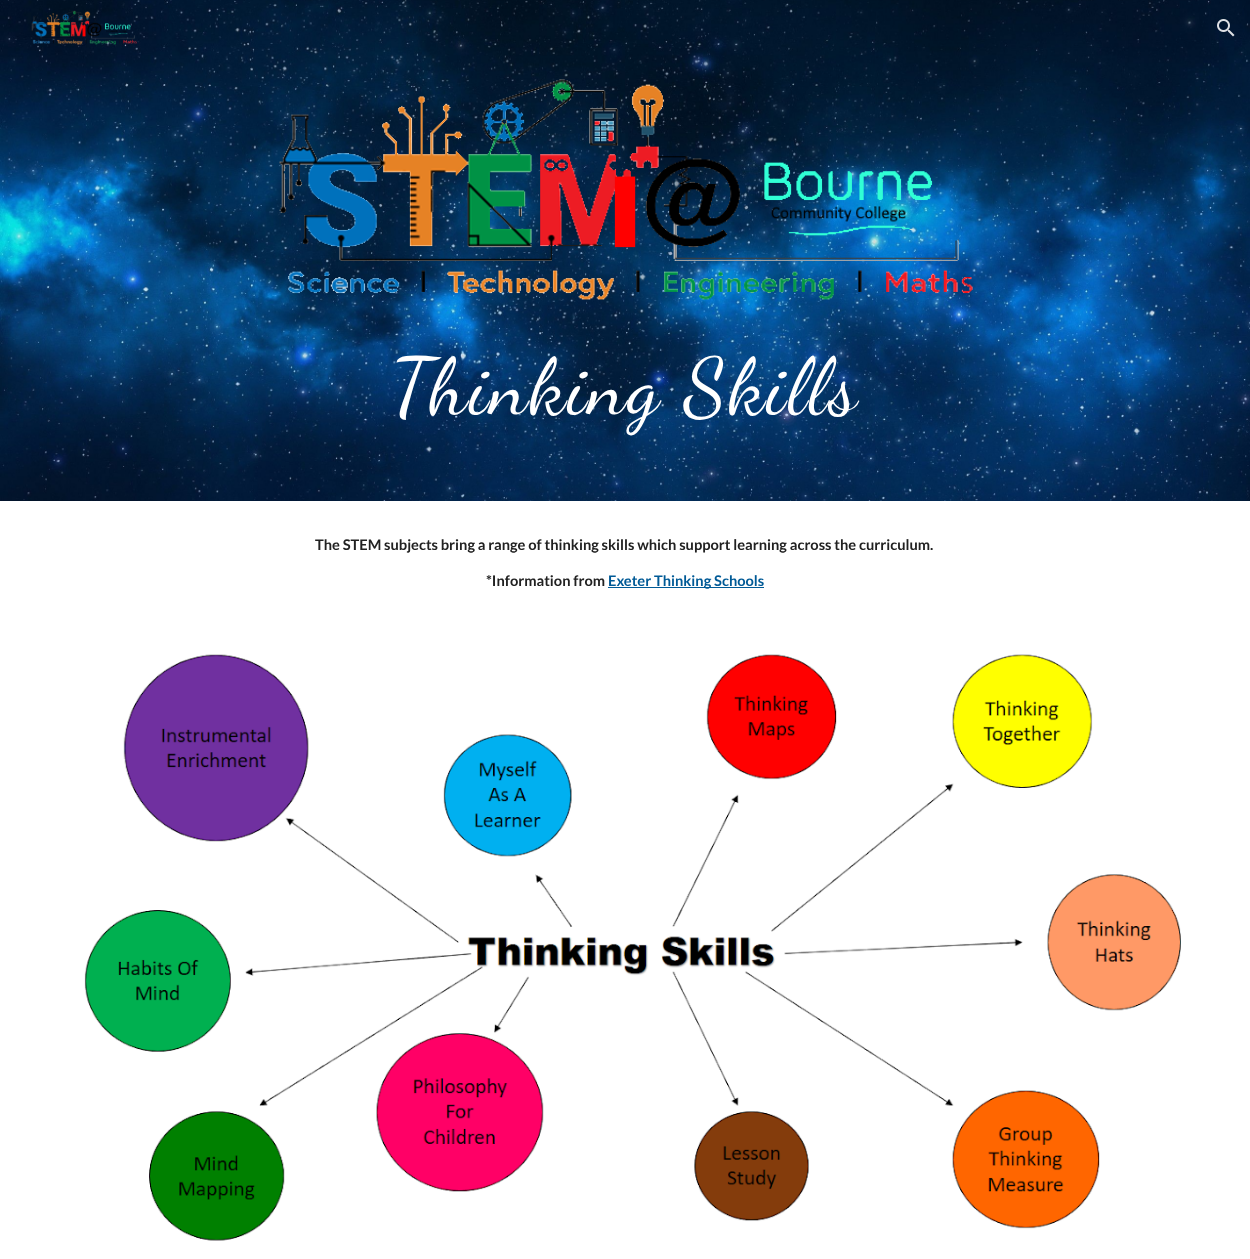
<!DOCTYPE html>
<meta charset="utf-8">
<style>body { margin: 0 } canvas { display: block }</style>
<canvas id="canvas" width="1250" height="1259"></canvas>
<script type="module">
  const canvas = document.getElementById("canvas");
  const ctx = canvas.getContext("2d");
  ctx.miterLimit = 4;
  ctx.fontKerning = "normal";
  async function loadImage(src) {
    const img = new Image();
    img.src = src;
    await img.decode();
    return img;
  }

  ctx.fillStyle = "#ffffff";
  ctx.fillRect(0, 0, 1250, 1259);
  ctx.drawImage(await loadImage("img3.png"), 0, 0, 1250, 501);
  ctx.drawImage(await loadImage("img1.png"), 31, 10, 106, 35);
  ctx.drawImage(await loadImage("img2.png"), 1217, 19, 18, 18);
  ctx.drawImage(await loadImage("img4.png"), 279, 79, 694, 221);
  ctx.letterSpacing = "2px";
  ctx.font = "80px Dancing Script";
  ctx.fillText("Thinking Skills", 391, 413);
  ctx.letterSpacing = "0px";
  ctx.font = "bold 14.65px Lato";
  ctx.fillStyle = "#212121";
  ctx.fillText("The STEM subjects bring a range of thinking skills which support learning across the curriculum.", 315, 550);
  ctx.fillText("*Information from", 486, 586);
  ctx.fillStyle = "#005a96";
  ctx.fillRect(608, 587, 156, 1);
  ctx.fillText("Exeter Thinking Schools", 608, 586);
  ctx.drawImage(await loadImage("img5.png"), 84, 654, 1097, 587);
</script>
